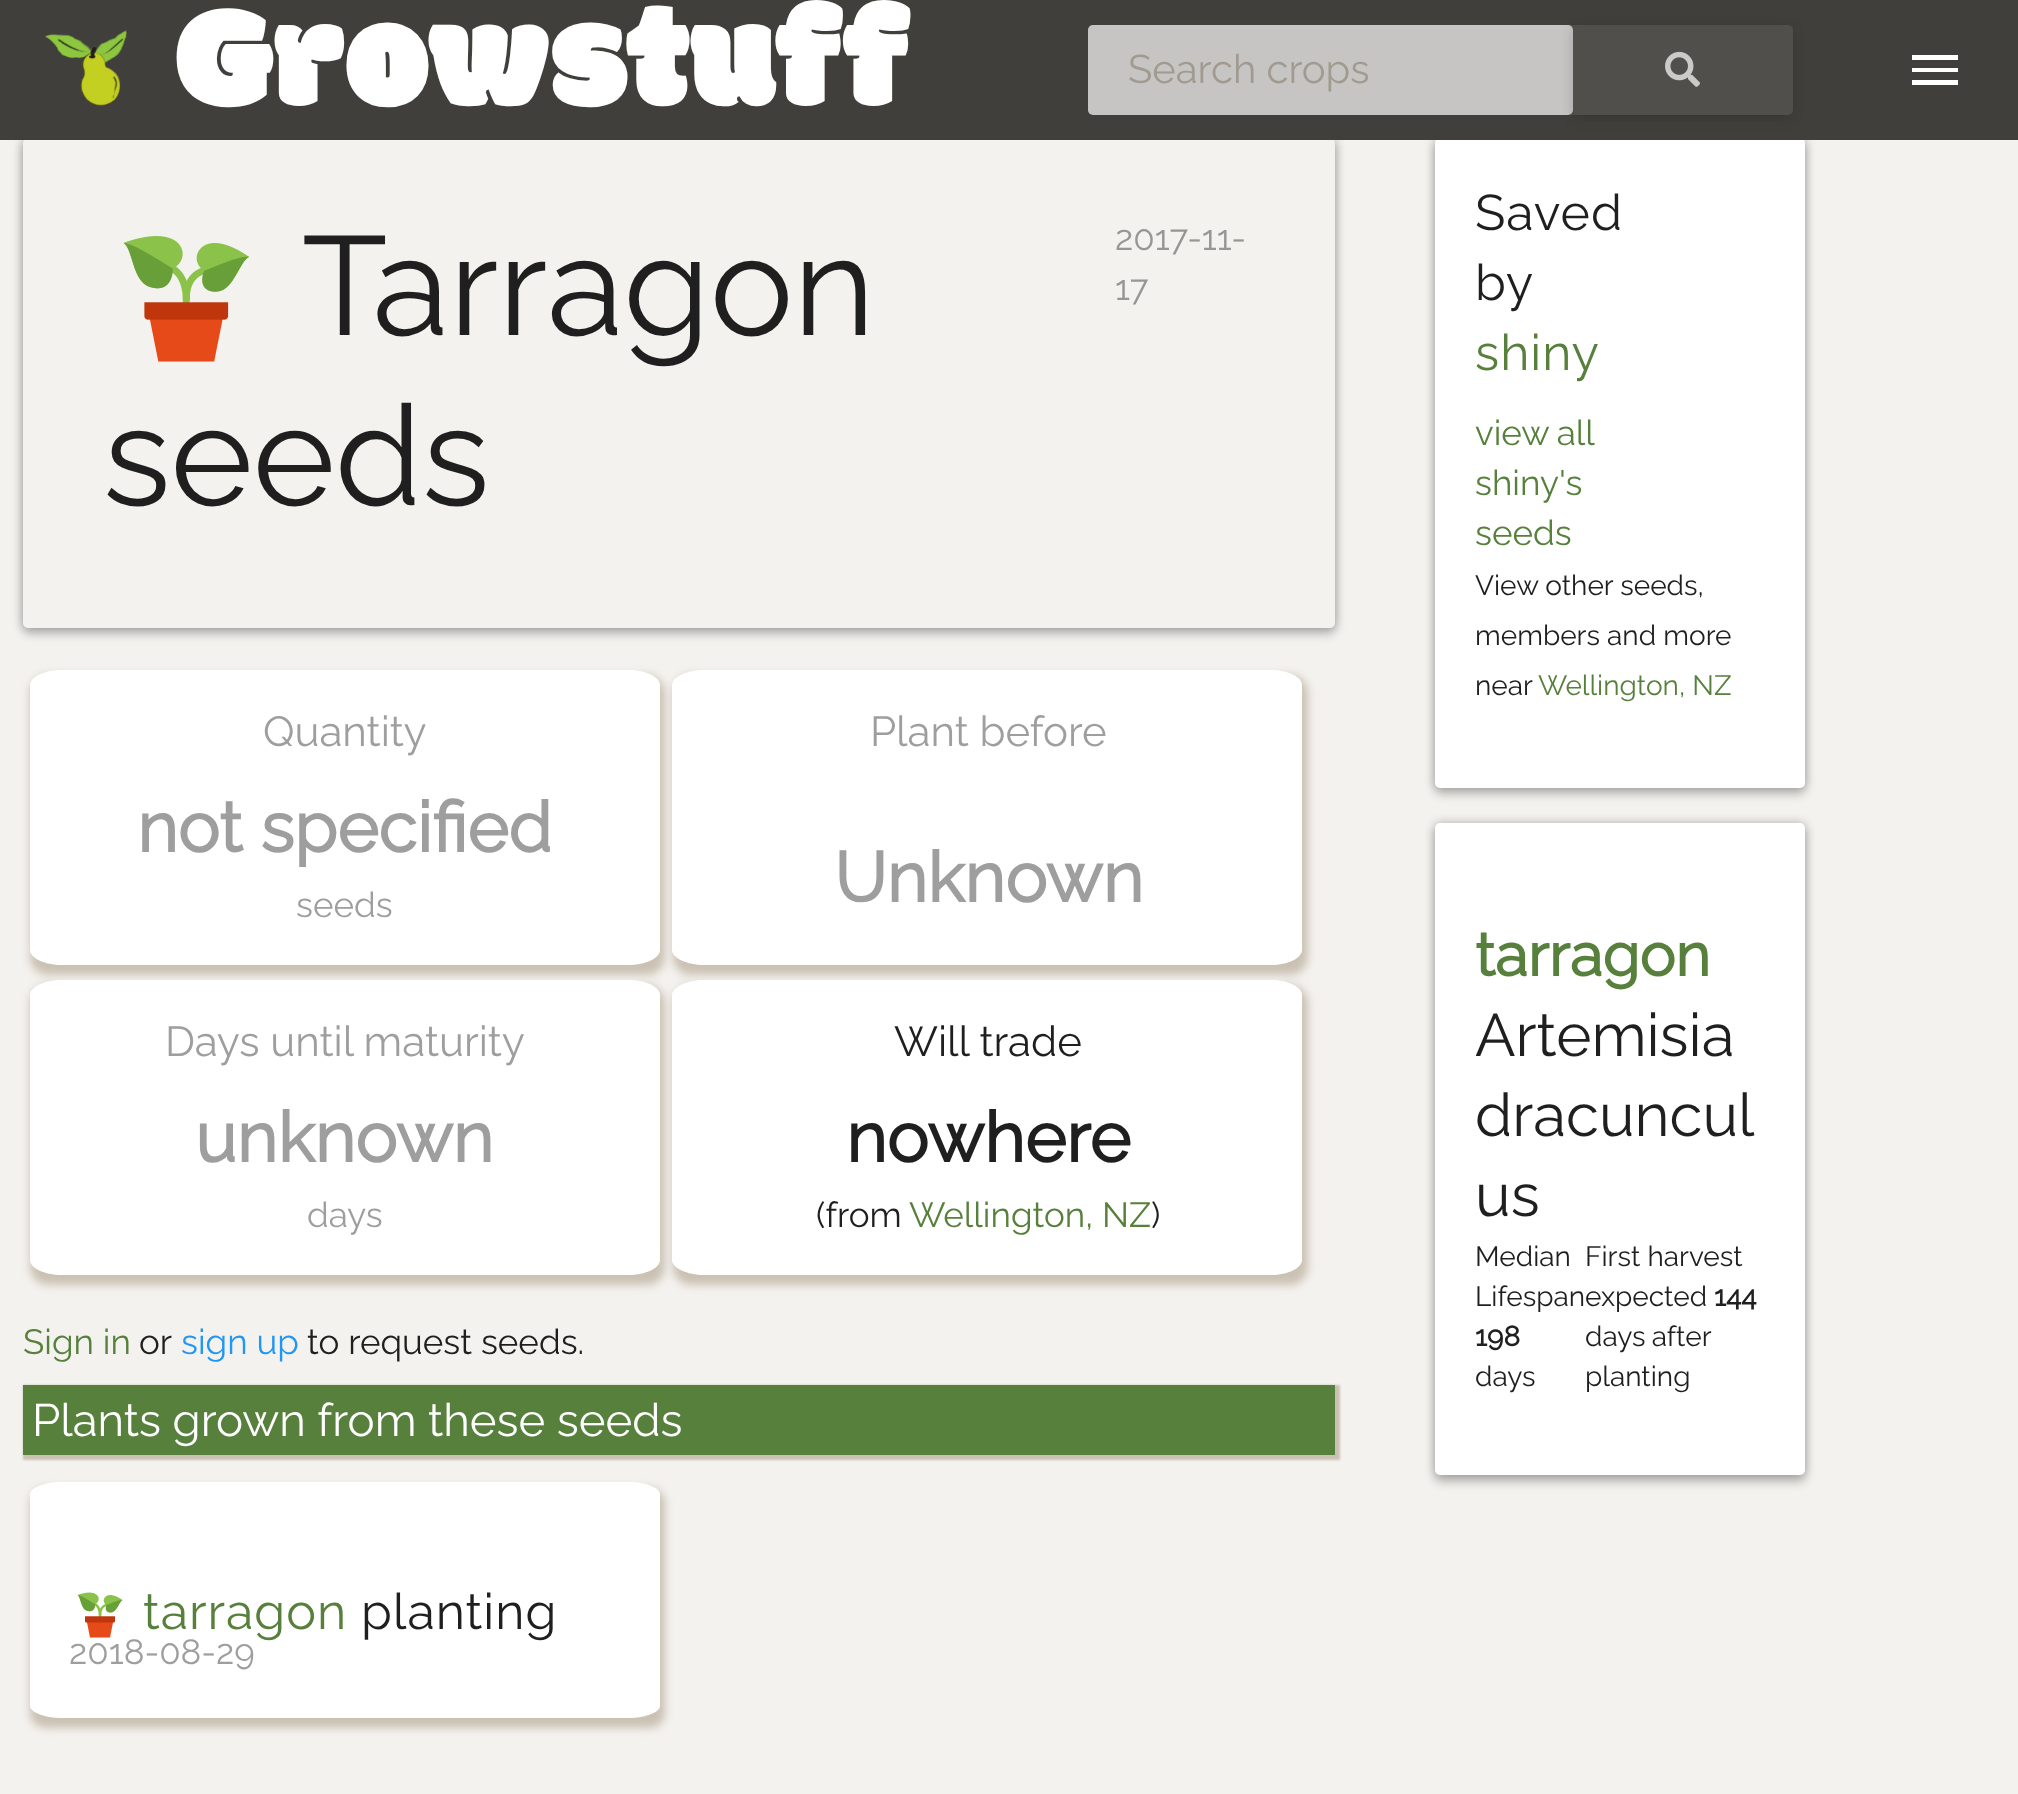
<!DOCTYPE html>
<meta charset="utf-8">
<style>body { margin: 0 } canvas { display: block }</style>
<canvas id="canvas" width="2018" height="1794"></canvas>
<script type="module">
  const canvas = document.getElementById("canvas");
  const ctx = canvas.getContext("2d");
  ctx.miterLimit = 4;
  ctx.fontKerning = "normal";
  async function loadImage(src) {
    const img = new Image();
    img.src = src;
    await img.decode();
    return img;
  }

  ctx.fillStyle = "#f4f2ef";
  ctx.fillRect(0, 0, 2018, 1794);
  ctx.fillStyle = "rgba(0, 0, 0, 0.2)";
  ctx.filter = "blur(6px)";
  ctx.beginPath();
  ctx.roundRect(23, 140, 1312, 490, 5);
  ctx.fill();
  ctx.filter = "none";
  ctx.fillStyle = "rgba(0, 0, 0, 0.12)";
  ctx.filter = "blur(5px)";
  ctx.beginPath();
  ctx.roundRect(23, 145, 1312, 490, 5);
  ctx.fill();
  ctx.filter = "none";
  ctx.fillStyle = "rgba(0, 0, 0, 0.14)";
  ctx.filter = "blur(5px)";
  ctx.beginPath();
  ctx.roundRect(23, 138, 1312, 490, 5);
  ctx.fill();
  ctx.filter = "none";
  ctx.fillStyle = "#f4f2ef";
  ctx.beginPath();
  ctx.roundRect(23, 138, 1312, 490, 5);
  ctx.fill();
  ctx.fillStyle = "rgba(0, 0, 0, 0.2)";
  ctx.filter = "blur(6px)";
  ctx.beginPath();
  ctx.roundRect(1435, 140, 370, 650, 5);
  ctx.fill();
  ctx.filter = "none";
  ctx.fillStyle = "rgba(0, 0, 0, 0.12)";
  ctx.filter = "blur(5px)";
  ctx.beginPath();
  ctx.roundRect(1435, 145, 370, 650, 5);
  ctx.fill();
  ctx.filter = "none";
  ctx.fillStyle = "rgba(0, 0, 0, 0.14)";
  ctx.filter = "blur(5px)";
  ctx.beginPath();
  ctx.roundRect(1435, 138, 370, 650, 5);
  ctx.fill();
  ctx.filter = "none";
  ctx.fillStyle = "#ffffff";
  ctx.beginPath();
  ctx.roundRect(1435, 138, 370, 650, 5);
  ctx.fill();
  ctx.fillStyle = "#413f3b";
  ctx.fillRect(0, 0, 2018, 140);
  ctx.drawImage(await loadImage("img1.png"), 45, 30, 82, 76);
  ctx.letterSpacing = "1px";
  ctx.font = "150px Modak";
  ctx.fillStyle = "#ffffff";
  ctx.fillText("Growstuff", 175, 105);
  ctx.fillStyle = "#514f4b";
  ctx.beginPath();
  ctx.roundRect(1088, 25, 705, 90, 5);
  ctx.fill();
  ctx.fillStyle = "#c6c5c4";
  ctx.beginPath();
  ctx.roundRect(1088, 25, 485, 90, 5);
  ctx.fill();
  ctx.letterSpacing = "0px";
  ctx.font = "100 40px Raleway";
  ctx.fillStyle = "#a19a8f";
  ctx.fillText("Search crops", 1128, 83);
  ctx.save();
  ctx.beginPath();
  ctx.moveTo(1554, 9);
  ctx.lineTo(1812, 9);
  ctx.lineTo(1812, 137);
  ctx.lineTo(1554, 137);
  ctx.closePath();
  ctx.moveTo(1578, 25);
  ctx.lineTo(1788, 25);
  ctx.bezierCurveTo(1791, 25, 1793, 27, 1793, 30);
  ctx.lineTo(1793, 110);
  ctx.bezierCurveTo(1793, 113, 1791, 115, 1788, 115);
  ctx.lineTo(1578, 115);
  ctx.bezierCurveTo(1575, 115, 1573, 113, 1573, 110);
  ctx.lineTo(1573, 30);
  ctx.bezierCurveTo(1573, 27, 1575, 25, 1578, 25);
  ctx.closePath();
  ctx.clip("evenodd");
  ctx.fillStyle = "rgba(20, 19, 18, 0.2)";
  ctx.filter = "blur(6px)";
  ctx.beginPath();
  ctx.roundRect(1573, 28, 220, 90, 5);
  ctx.fill();
  ctx.filter = "none";
  ctx.restore();
  ctx.drawImage(await loadImage("img2.png"), 1665, 51, 35, 36);
  ctx.fillStyle = "#ffffff";
  ctx.beginPath();
  ctx.moveTo(1912, 55);
  ctx.lineTo(1958, 55);
  ctx.lineTo(1958, 60);
  ctx.lineTo(1912, 60);
  ctx.closePath();
  ctx.moveTo(1912, 72);
  ctx.lineTo(1912, 68);
  ctx.lineTo(1958, 68);
  ctx.lineTo(1958, 72);
  ctx.closePath();
  ctx.moveTo(1912, 85);
  ctx.lineTo(1912, 80);
  ctx.lineTo(1958, 80);
  ctx.lineTo(1958, 85);
  ctx.closePath();
  ctx.fill();
  ctx.drawImage(await loadImage("img3.png"), 123, 236, 127, 126);
  ctx.font = "100 140px Raleway";
  ctx.fillStyle = "#201f1f";
  ctx.fillText("Tarragon", 302, 335);
  ctx.fillText("seeds", 103, 505);
  ctx.font = "100 35px Raleway";
  ctx.fillStyle = "#979694";
  ctx.fillText("2017-11-", 1115, 250);
  ctx.fillText("17", 1115, 300);
  ctx.fillStyle = "#cac1b3";
  ctx.filter = "blur(4px)";
  ctx.beginPath();
  ctx.roundRect(30, 675, 635, 300, 18);
  ctx.fill();
  ctx.filter = "none";
  ctx.fillStyle = "#ffffff";
  ctx.beginPath();
  ctx.moveTo(62, 670);
  ctx.lineTo(628, 670);
  ctx.bezierCurveTo(646, 670, 660, 677, 660, 685);
  ctx.lineTo(660, 950);
  ctx.bezierCurveTo(660, 958, 646, 965, 628, 965);
  ctx.lineTo(62, 965);
  ctx.bezierCurveTo(44, 965, 30, 958, 30, 950);
  ctx.lineTo(30, 685);
  ctx.bezierCurveTo(30, 677, 44, 670, 62, 670);
  ctx.closePath();
  ctx.fill();
  ctx.font = "100 42px Raleway";
  ctx.fillStyle = "#9e9e9e";
  ctx.fillText("Quantity", 263, 746);
  ctx.font = "bold 70px Raleway";
  ctx.fillText("not specified", 137, 852);
  ctx.font = "100 35px Raleway";
  ctx.fillText("seeds", 296, 917);
  ctx.fillStyle = "#cac1b3";
  ctx.filter = "blur(4px)";
  ctx.beginPath();
  ctx.roundRect(673, 675, 635, 300, 18);
  ctx.fill();
  ctx.filter = "none";
  ctx.fillStyle = "#ffffff";
  ctx.beginPath();
  ctx.moveTo(704, 670);
  ctx.lineTo(1271, 670);
  ctx.bezierCurveTo(1288, 670, 1302, 677, 1302, 685);
  ctx.lineTo(1302, 950);
  ctx.bezierCurveTo(1302, 958, 1288, 965, 1271, 965);
  ctx.lineTo(704, 965);
  ctx.bezierCurveTo(687, 965, 672, 958, 672, 950);
  ctx.lineTo(672, 685);
  ctx.bezierCurveTo(672, 677, 687, 670, 704, 670);
  ctx.closePath();
  ctx.fill();
  ctx.font = "100 42px Raleway";
  ctx.fillStyle = "#9e9e9e";
  ctx.fillText("Plant before", 870, 746);
  ctx.font = "bold 70px Raleway";
  ctx.fillText("Unknown", 834, 902);
  ctx.fillStyle = "#cac1b3";
  ctx.filter = "blur(4px)";
  ctx.beginPath();
  ctx.roundRect(30, 985, 635, 300, 18);
  ctx.fill();
  ctx.filter = "none";
  ctx.fillStyle = "#ffffff";
  ctx.beginPath();
  ctx.moveTo(62, 980);
  ctx.lineTo(628, 980);
  ctx.bezierCurveTo(646, 980, 660, 987, 660, 995);
  ctx.lineTo(660, 1260);
  ctx.bezierCurveTo(660, 1268, 646, 1275, 628, 1275);
  ctx.lineTo(62, 1275);
  ctx.bezierCurveTo(44, 1275, 30, 1268, 30, 1260);
  ctx.lineTo(30, 995);
  ctx.bezierCurveTo(30, 987, 44, 980, 62, 980);
  ctx.closePath();
  ctx.fill();
  ctx.font = "100 42px Raleway";
  ctx.fillStyle = "#9e9e9e";
  ctx.fillText("Days until maturity", 165, 1056);
  ctx.font = "bold 70px Raleway";
  ctx.fillText("unknown", 195, 1162);
  ctx.font = "100 35px Raleway";
  ctx.fillText("days", 307, 1227);
  ctx.fillStyle = "#cac1b3";
  ctx.filter = "blur(4px)";
  ctx.beginPath();
  ctx.roundRect(673, 985, 635, 300, 18);
  ctx.fill();
  ctx.filter = "none";
  ctx.fillStyle = "#ffffff";
  ctx.beginPath();
  ctx.moveTo(704, 980);
  ctx.lineTo(1271, 980);
  ctx.bezierCurveTo(1288, 980, 1302, 987, 1302, 995);
  ctx.lineTo(1302, 1260);
  ctx.bezierCurveTo(1302, 1268, 1288, 1275, 1271, 1275);
  ctx.lineTo(704, 1275);
  ctx.bezierCurveTo(687, 1275, 672, 1268, 672, 1260);
  ctx.lineTo(672, 995);
  ctx.bezierCurveTo(672, 987, 687, 980, 704, 980);
  ctx.closePath();
  ctx.fill();
  ctx.font = "100 42px Raleway";
  ctx.fillStyle = "#201f1f";
  ctx.fillText("Will trade", 894, 1056);
  ctx.font = "bold 70px Raleway";
  ctx.fillText("nowhere", 846, 1162);
  ctx.font = "100 35px Raleway";
  ctx.fillText("(from", 816, 1227);
  ctx.fillStyle = "#57803c";
  ctx.fillText("Wellington, NZ", 909, 1227);
  ctx.fillStyle = "#201f1f";
  ctx.fillText(")", 1151, 1227);
  ctx.fillStyle = "#57803c";
  ctx.fillText("Sign in", 23, 1354);
  ctx.fillStyle = "#201f1f";
  ctx.fillText("or", 139, 1354);
  ctx.fillStyle = "#2196f3";
  ctx.fillText("sign up", 181, 1354);
  ctx.fillStyle = "#201f1f";
  ctx.fillText("to request seeds.", 307, 1354);
  ctx.fillStyle = "#cac1b3";
  ctx.filter = "blur(1px)";
  ctx.beginPath();
  ctx.rect(23, 1385, 1317, 75);
  ctx.fill();
  ctx.filter = "none";
  ctx.fillStyle = "#57803c";
  ctx.fillRect(23, 1385, 1312, 70);
  ctx.font = "100 45.5px Raleway";
  ctx.fillStyle = "#ffffff";
  ctx.fillText("Plants grown from these seeds", 32, 1436);
  ctx.fillStyle = "#cac1b3";
  ctx.filter = "blur(4px)";
  ctx.beginPath();
  ctx.roundRect(30, 1488, 635, 240, 15);
  ctx.fill();
  ctx.filter = "none";
  ctx.fillStyle = "#ffffff";
  ctx.beginPath();
  ctx.moveTo(62, 1482);
  ctx.lineTo(628, 1482);
  ctx.bezierCurveTo(646, 1482, 660, 1488, 660, 1494);
  ctx.lineTo(660, 1706);
  ctx.bezierCurveTo(660, 1712, 646, 1718, 628, 1718);
  ctx.lineTo(62, 1718);
  ctx.bezierCurveTo(44, 1718, 30, 1712, 30, 1706);
  ctx.lineTo(30, 1494);
  ctx.bezierCurveTo(30, 1488, 44, 1482, 62, 1482);
  ctx.closePath();
  ctx.fill();
  ctx.drawImage(await loadImage("img4.png"), 77, 1592, 46, 46);
  ctx.letterSpacing = "1px";
  ctx.font = "100 50px Raleway";
  ctx.fillStyle = "#57803c";
  ctx.fillText("tarragon", 143, 1629);
  ctx.fillStyle = "#201f1f";
  ctx.fillText("planting", 361, 1629);
  ctx.letterSpacing = "0px";
  ctx.font = "100 35px Raleway";
  ctx.fillStyle = "#9e9e9e";
  ctx.fillText("2018-08-29", 69, 1664);
  ctx.letterSpacing = "1px";
  ctx.font = "100 50px Raleway";
  ctx.fillStyle = "#201f1f";
  ctx.fillText("Saved", 1475, 230);
  ctx.fillText("by", 1475, 300);
  ctx.fillStyle = "#57803c";
  ctx.fillText("shiny", 1475, 370);
  ctx.letterSpacing = "0px";
  ctx.wordSpacing = "-1px";
  ctx.font = "100 35px Raleway";
  ctx.fillText("view all", 1475, 445);
  ctx.wordSpacing = "0px";
  ctx.fillText("shiny's", 1475, 495);
  ctx.fillText("seeds", 1475, 545);
  ctx.font = "100 28px Raleway";
  ctx.fillStyle = "#201f1f";
  ctx.fillText("View other seeds,", 1475, 595);
  ctx.fillText("members and more", 1475, 645);
  ctx.fillText("near", 1475, 695);
  ctx.fillStyle = "#57803c";
  ctx.fillText("Wellington, NZ", 1538, 695);
  ctx.fillStyle = "rgba(0, 0, 0, 0.2)";
  ctx.filter = "blur(6px)";
  ctx.beginPath();
  ctx.roundRect(1435, 825, 370, 653, 5);
  ctx.fill();
  ctx.filter = "none";
  ctx.fillStyle = "rgba(0, 0, 0, 0.12)";
  ctx.filter = "blur(5px)";
  ctx.beginPath();
  ctx.roundRect(1435, 830, 370, 653, 5);
  ctx.fill();
  ctx.filter = "none";
  ctx.fillStyle = "rgba(0, 0, 0, 0.14)";
  ctx.filter = "blur(5px)";
  ctx.beginPath();
  ctx.roundRect(1435, 823, 370, 652, 5);
  ctx.fill();
  ctx.filter = "none";
  ctx.fillStyle = "#ffffff";
  ctx.beginPath();
  ctx.roundRect(1435, 823, 370, 652, 5);
  ctx.fill();
  ctx.font = "bold 60px Raleway";
  ctx.fillStyle = "#57803c";
  ctx.fillText("tarragon", 1475, 976);
  ctx.font = "100 60px Raleway";
  ctx.fillStyle = "#201f1f";
  ctx.fillText("Artemisia", 1475, 1056);
  ctx.fillText("dracuncul", 1475, 1136);
  ctx.fillText("us", 1475, 1216);
  ctx.font = "100 28px Raleway";
  ctx.fillText("Median", 1475, 1266);
  ctx.fillText("Lifespanexpected", 1475, 1306);
  ctx.font = "bold 28px Raleway";
  ctx.fillText("198", 1475, 1346);
  ctx.font = "100 28px Raleway";
  ctx.fillText("days", 1475, 1386);
  ctx.fillText("First harvest", 1585, 1266);
  ctx.font = "bold 28px Raleway";
  ctx.fillText("144", 1714, 1306);
  ctx.wordSpacing = "-1px";
  ctx.font = "100 28px Raleway";
  ctx.fillText("days after", 1585, 1346);
  ctx.wordSpacing = "0px";
  ctx.fillText("planting", 1585, 1386);
</script>
